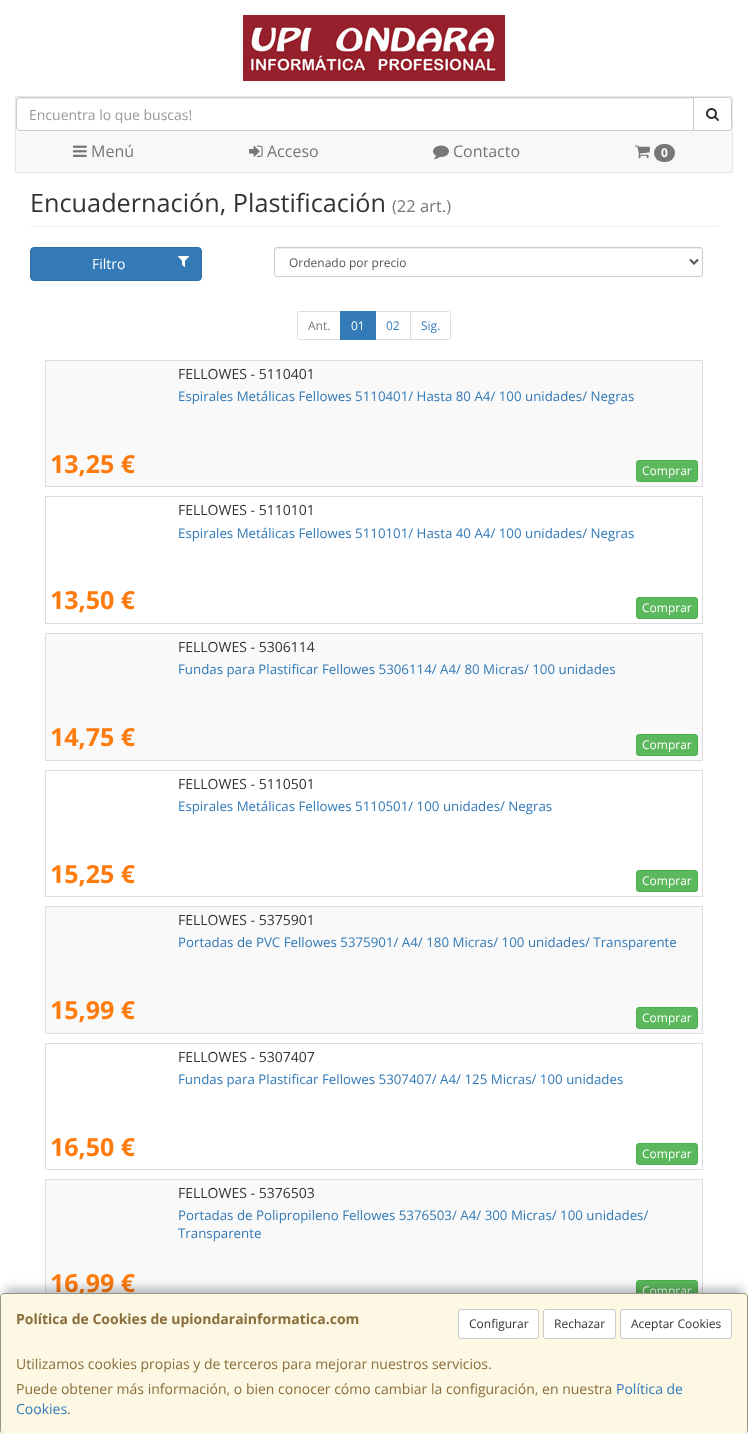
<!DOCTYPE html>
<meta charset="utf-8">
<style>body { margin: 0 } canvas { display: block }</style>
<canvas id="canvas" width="748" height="1434"></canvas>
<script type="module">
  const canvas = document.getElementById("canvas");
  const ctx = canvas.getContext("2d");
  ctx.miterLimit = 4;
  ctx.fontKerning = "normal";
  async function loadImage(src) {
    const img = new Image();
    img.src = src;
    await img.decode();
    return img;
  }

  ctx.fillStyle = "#ffffff";
  ctx.fillRect(0, 0, 748, 1434);
  ctx.drawImage(await loadImage("img1.png"), 243, 15, 262, 66);
  ctx.fillStyle = "#f8f8f8";
  ctx.beginPath();
  ctx.rect(15.5, 96.5, 717, 76);
  ctx.fill();
  ctx.strokeStyle = "#e7e7e7";
  ctx.stroke();
  ctx.fillStyle = "#ffffff";
  ctx.beginPath();
  ctx.roundRect(693.5, 97.5, 38, 33, [0, 3.5, 3.5, 0]);
  ctx.fill();
  ctx.strokeStyle = "#cccccc";
  ctx.stroke();
  ctx.beginPath();
  ctx.roundRect(16, 97, 678, 34, [4, 0, 0, 4]);
  ctx.fill();
  ctx.fillStyle = "#ececec";
  ctx.beginPath();
  ctx.moveTo(20, 99);
  ctx.lineTo(693, 99);
  ctx.lineTo(693, 98);
  ctx.lineTo(20, 98);
  ctx.bezierCurveTo(18, 98, 17, 99, 17, 101);
  ctx.lineTo(17, 102);
  ctx.bezierCurveTo(17, 100, 18, 99, 20, 99);
  ctx.closePath();
  ctx.fill();
  ctx.beginPath();
  ctx.roundRect(16.5, 97.5, 677, 33, [3.5, 0, 0, 3.5]);
  ctx.stroke();
  ctx.font = "14px Open Sans";
  ctx.fillStyle = "#999999";
  ctx.fillText("Encuentra lo que buscas!", 29, 120);
  ctx.drawImage(await loadImage("img2.png"), 706, 108, 13, 13);
  ctx.drawImage(await loadImage("img3.png"), 73, 145, 14, 12);
  ctx.font = "16px Open Sans";
  ctx.fillStyle = "#777777";
  ctx.fillText("Menú", 91, 157);
  ctx.drawImage(await loadImage("img4.png"), 249, 145, 14, 12);
  ctx.fillText("Acceso", 267, 157);
  ctx.drawImage(await loadImage("img5.png"), 433, 145, 16, 15);
  ctx.fillText("Contacto", 453, 157);
  ctx.drawImage(await loadImage("img6.png"), 635, 145, 15, 14);
  ctx.beginPath();
  ctx.roundRect(654, 144, 21, 18, 9);
  ctx.fill();
  ctx.font = "bold 12px Open Sans";
  ctx.fillStyle = "#ffffff";
  ctx.fillText("0", 661, 157);
  ctx.fillStyle = "#eeeeee";
  ctx.fillRect(30, 226, 688, 1);
  ctx.font = "25.25px Open Sans";
  ctx.fillStyle = "#333333";
  ctx.fillText("Encuadernación, Plastificación", 30, 212);
  ctx.font = "16.5px Open Sans";
  ctx.fillStyle = "#777777";
  ctx.fillText("(22 art.)", 392, 212);
  ctx.fillStyle = "#337ab7";
  ctx.beginPath();
  ctx.roundRect(30.5, 247.5, 171, 33, 3.5);
  ctx.fill();
  ctx.strokeStyle = "#2e6da4";
  ctx.stroke();
  ctx.font = "14px Open Sans";
  ctx.fillStyle = "#ffffff";
  ctx.fillText("Filtro", 92, 269);
  ctx.drawImage(await loadImage("img7.png"), 178, 256, 11, 11);
  ctx.fillStyle = "#ececec";
  ctx.beginPath();
  ctx.moveTo(277, 249);
  ctx.lineTo(700, 249);
  ctx.bezierCurveTo(701, 249, 702, 250, 702, 251);
  ctx.bezierCurveTo(702, 250, 702, 248, 700, 248);
  ctx.lineTo(277, 248);
  ctx.lineTo(275, 249);
  ctx.lineTo(275, 251);
  ctx.bezierCurveTo(275, 250, 276, 249, 277, 249);
  ctx.closePath();
  ctx.fill();
  ctx.beginPath();
  ctx.roundRect(274.5, 247.5, 428, 29, 2.5);
  ctx.strokeStyle = "#cccccc";
  ctx.stroke();
  ctx.beginPath();
  ctx.moveTo(690, 259.5);
  ctx.lineTo(694, 263.5);
  ctx.lineTo(698, 259.5);
  ctx.strokeStyle = "#555555";
  ctx.lineWidth = 2;
  ctx.stroke();
  ctx.font = "12px Open Sans";
  ctx.fillStyle = "#555555";
  ctx.fillText("Ordenado por precio", 289, 267);
  ctx.beginPath();
  ctx.roundRect(297.5, 311.5, 43, 28, [2.5, 0, 0, 2.5]);
  ctx.strokeStyle = "#dddddd";
  ctx.lineWidth = 1;
  ctx.stroke();
  ctx.fillStyle = "#777777";
  ctx.fillText("Ant.", 308, 330);
  ctx.strokeRect(375.5, 311.5, 35, 28);
  ctx.fillStyle = "#337ab7";
  ctx.fillRect(340, 311, 36, 29);
  ctx.fillStyle = "#ffffff";
  ctx.fillText("01", 351, 330);
  ctx.fillStyle = "#337ab7";
  ctx.fillText("02", 386, 330);
  ctx.fillStyle = "#ffffff";
  ctx.beginPath();
  ctx.roundRect(410.5, 311.5, 40, 28, [0, 2.5, 2.5, 0]);
  ctx.fill();
  ctx.stroke();
  ctx.fillStyle = "#337ab7";
  ctx.fillText("Sig.", 421, 330);
  ctx.fillStyle = "#f9f9f9";
  ctx.beginPath();
  ctx.roundRect(45, 360, 658, 127, [4, 4, 0, 0]);
  ctx.fill();
  ctx.strokeRect(45.5, 360.5, 657, 126);
  ctx.font = "14px Open Sans";
  ctx.fillStyle = "#333333";
  ctx.fillText("FELLOWES - 5110401", 178, 379);
  ctx.font = "13.3px Open Sans";
  ctx.fillStyle = "#337ab7";
  ctx.fillText("Espirales Metálicas Fellowes 5110401/ Hasta 80 A4/ 100 unidades/ Negras", 178, 401);
  ctx.font = "bold 25px Open Sans";
  ctx.fillStyle = "#ff7b0d";
  ctx.fillText("13,25 €", 50, 473);
  ctx.fillStyle = "#5cb85c";
  ctx.beginPath();
  ctx.roundRect(636.5, 460.5, 61, 21, 2.5);
  ctx.fill();
  ctx.strokeStyle = "#4cae4c";
  ctx.stroke();
  ctx.font = "12px Open Sans";
  ctx.fillStyle = "#ffffff";
  ctx.fillText("Comprar", 642, 475);
  ctx.strokeStyle = "#dddddd";
  ctx.strokeRect(45.5, 496.5, 657, 127);
  ctx.font = "14px Open Sans";
  ctx.fillStyle = "#333333";
  ctx.fillText("FELLOWES - 5110101", 178, 515);
  ctx.font = "13.3px Open Sans";
  ctx.fillStyle = "#337ab7";
  ctx.fillText("Espirales Metálicas Fellowes 5110101/ Hasta 40 A4/ 100 unidades/ Negras", 178, 538);
  ctx.font = "bold 25px Open Sans";
  ctx.fillStyle = "#ff7b0d";
  ctx.fillText("13,50 €", 50, 609);
  ctx.fillStyle = "#5cb85c";
  ctx.beginPath();
  ctx.roundRect(636.5, 597.5, 61, 21, 2.5);
  ctx.fill();
  ctx.strokeStyle = "#4cae4c";
  ctx.stroke();
  ctx.font = "12px Open Sans";
  ctx.fillStyle = "#ffffff";
  ctx.fillText("Comprar", 642, 612);
  ctx.fillStyle = "#f9f9f9";
  ctx.beginPath();
  ctx.rect(45.5, 633.5, 657, 127);
  ctx.fill();
  ctx.strokeStyle = "#dddddd";
  ctx.stroke();
  ctx.font = "14px Open Sans";
  ctx.fillStyle = "#333333";
  ctx.fillText("FELLOWES - 5306114", 178, 652);
  ctx.font = "13.3px Open Sans";
  ctx.fillStyle = "#337ab7";
  ctx.fillText("Fundas para Plastificar Fellowes 5306114/ A4/ 80 Micras/ 100 unidades", 178, 674);
  ctx.font = "bold 25px Open Sans";
  ctx.fillStyle = "#ff7b0d";
  ctx.fillText("14,75 €", 50, 746);
  ctx.fillStyle = "#5cb85c";
  ctx.beginPath();
  ctx.roundRect(636.5, 734.5, 61, 21, 2.5);
  ctx.fill();
  ctx.strokeStyle = "#4cae4c";
  ctx.stroke();
  ctx.font = "12px Open Sans";
  ctx.fillStyle = "#ffffff";
  ctx.fillText("Comprar", 642, 749);
  ctx.strokeStyle = "#dddddd";
  ctx.strokeRect(45.5, 770.5, 657, 126);
  ctx.font = "14px Open Sans";
  ctx.fillStyle = "#333333";
  ctx.fillText("FELLOWES - 5110501", 178, 789);
  ctx.font = "13.3px Open Sans";
  ctx.fillStyle = "#337ab7";
  ctx.fillText("Espirales Metálicas Fellowes 5110501/ 100 unidades/ Negras", 178, 811);
  ctx.font = "bold 25px Open Sans";
  ctx.fillStyle = "#ff7b0d";
  ctx.fillText("15,25 €", 50, 883);
  ctx.fillStyle = "#5cb85c";
  ctx.beginPath();
  ctx.roundRect(636.5, 870.5, 61, 21, 2.5);
  ctx.fill();
  ctx.strokeStyle = "#4cae4c";
  ctx.stroke();
  ctx.font = "12px Open Sans";
  ctx.fillStyle = "#ffffff";
  ctx.fillText("Comprar", 642, 885);
  ctx.fillStyle = "#f9f9f9";
  ctx.beginPath();
  ctx.rect(45.5, 906.5, 657, 127);
  ctx.fill();
  ctx.strokeStyle = "#dddddd";
  ctx.stroke();
  ctx.font = "14px Open Sans";
  ctx.fillStyle = "#333333";
  ctx.fillText("FELLOWES - 5375901", 178, 925);
  ctx.font = "13.3px Open Sans";
  ctx.fillStyle = "#337ab7";
  ctx.fillText("Portadas de PVC Fellowes 5375901/ A4/ 180 Micras/ 100 unidades/ Transparente", 178, 947);
  ctx.font = "bold 25px Open Sans";
  ctx.fillStyle = "#ff7b0d";
  ctx.fillText("15,99 €", 50, 1019);
  ctx.fillStyle = "#5cb85c";
  ctx.beginPath();
  ctx.roundRect(636.5, 1007.5, 61, 21, 2.5);
  ctx.fill();
  ctx.strokeStyle = "#4cae4c";
  ctx.stroke();
  ctx.font = "12px Open Sans";
  ctx.fillStyle = "#ffffff";
  ctx.fillText("Comprar", 642, 1022);
  ctx.strokeStyle = "#dddddd";
  ctx.strokeRect(45.5, 1043.5, 657, 126);
  ctx.font = "14px Open Sans";
  ctx.fillStyle = "#333333";
  ctx.fillText("FELLOWES - 5307407", 178, 1062);
  ctx.font = "13.3px Open Sans";
  ctx.fillStyle = "#337ab7";
  ctx.fillText("Fundas para Plastificar Fellowes 5307407/ A4/ 125 Micras/ 100 unidades", 178, 1084);
  ctx.font = "bold 25px Open Sans";
  ctx.fillStyle = "#ff7b0d";
  ctx.fillText("16,50 €", 50, 1156);
  ctx.fillStyle = "#5cb85c";
  ctx.beginPath();
  ctx.roundRect(636.5, 1143.5, 61, 21, 2.5);
  ctx.fill();
  ctx.strokeStyle = "#4cae4c";
  ctx.stroke();
  ctx.font = "12px Open Sans";
  ctx.fillStyle = "#ffffff";
  ctx.fillText("Comprar", 642, 1158);
  ctx.fillStyle = "#f9f9f9";
  ctx.fillRect(46, 1180, 656, 113);
  ctx.strokeStyle = "#dddddd";
  ctx.strokeRect(45.5, 1179.5, 657, 127);
  ctx.font = "14px Open Sans";
  ctx.fillStyle = "#333333";
  ctx.fillText("FELLOWES - 5376503", 178, 1198);
  ctx.font = "13.3px Open Sans";
  ctx.fillStyle = "#337ab7";
  ctx.fillText("Portadas de Polipropileno Fellowes 5376503/ A4/ 300 Micras/ 100 unidades/", 178, 1220);
  ctx.fillText("Transparente", 178, 1238);
  ctx.font = "bold 25px Open Sans";
  ctx.fillStyle = "#ff7b0d";
  ctx.fillText("16,99 €", 50, 1292);
  ctx.fillStyle = "#5cb85c";
  ctx.beginPath();
  ctx.roundRect(636.5, 1280.5, 61, 21, 2.5);
  ctx.fill();
  ctx.strokeStyle = "#4cae4c";
  ctx.stroke();
  ctx.font = "12px Open Sans";
  ctx.fillStyle = "#ffffff";
  ctx.fillText("Comprar", 642, 1295);
  ctx.fillStyle = "rgba(0, 0, 0, 0.25)";
  ctx.filter = "blur(5px)";
  ctx.beginPath();
  ctx.rect(5, 1288, 738, 131);
  ctx.fill();
  ctx.filter = "none";
  ctx.fillStyle = "#fcf8e3";
  ctx.beginPath();
  ctx.roundRect(0, 1293, 748, 141, 4);
  ctx.fill();
  ctx.fillStyle = "rgba(0, 0, 0, 0.4)";
  ctx.beginPath();
  ctx.moveTo(4, 1293);
  ctx.lineTo(744, 1293);
  ctx.bezierCurveTo(746, 1293, 748, 1295, 748, 1297);
  ctx.lineTo(748, 1430);
  ctx.bezierCurveTo(748, 1432, 746, 1434, 744, 1434);
  ctx.lineTo(4, 1434);
  ctx.bezierCurveTo(2, 1434, 0, 1432, 0, 1430);
  ctx.lineTo(0, 1297);
  ctx.bezierCurveTo(0, 1295, 2, 1293, 4, 1293);
  ctx.closePath();
  ctx.moveTo(4, 1294);
  ctx.lineTo(744, 1294);
  ctx.bezierCurveTo(746, 1294, 747, 1295, 747, 1297);
  ctx.lineTo(747, 1430);
  ctx.bezierCurveTo(747, 1432, 746, 1434, 744, 1434);
  ctx.lineTo(4, 1434);
  ctx.bezierCurveTo(2, 1434, 1, 1432, 1, 1430);
  ctx.lineTo(1, 1297);
  ctx.bezierCurveTo(1, 1295, 2, 1294, 4, 1294);
  ctx.closePath();
  ctx.fill("evenodd");
  ctx.font = "bold 14px Open Sans";
  ctx.fillStyle = "#8a6d3b";
  ctx.fillText("Política de Cookies de upiondarainformatica.com", 16, 1324);
  ctx.fillStyle = "#ffffff";
  ctx.beginPath();
  ctx.roundRect(458.5, 1309.5, 80, 29, 2.5);
  ctx.fill();
  ctx.strokeStyle = "#cccccc";
  ctx.stroke();
  ctx.font = "12px Open Sans";
  ctx.fillStyle = "#333333";
  ctx.fillText("Configurar", 469, 1328);
  ctx.fillStyle = "#ffffff";
  ctx.beginPath();
  ctx.roundRect(543.5, 1309.5, 72, 29, 2.5);
  ctx.fill();
  ctx.stroke();
  ctx.fillStyle = "#333333";
  ctx.fillText("Rechazar", 554, 1328);
  ctx.fillStyle = "#ffffff";
  ctx.beginPath();
  ctx.roundRect(620.5, 1309.5, 111, 29, 2.5);
  ctx.fill();
  ctx.stroke();
  ctx.fillStyle = "#333333";
  ctx.fillText("Aceptar Cookies", 631, 1328);
  ctx.font = "14px Open Sans";
  ctx.fillStyle = "#8a6d3b";
  ctx.fillText("Utilizamos cookies propias y de terceros para mejorar nuestros servicios.", 16, 1369);
  ctx.fillText("Puede obtener más información, o bien conocer cómo cambiar la configuración, en nuestra", 16, 1394);
  ctx.fillStyle = "#337ab7";
  ctx.fillText("Política de", 616, 1394);
  ctx.fillText("Cookies", 16, 1414);
  ctx.fillStyle = "#8a6d3b";
  ctx.fillText(".", 67, 1414);
</script>
